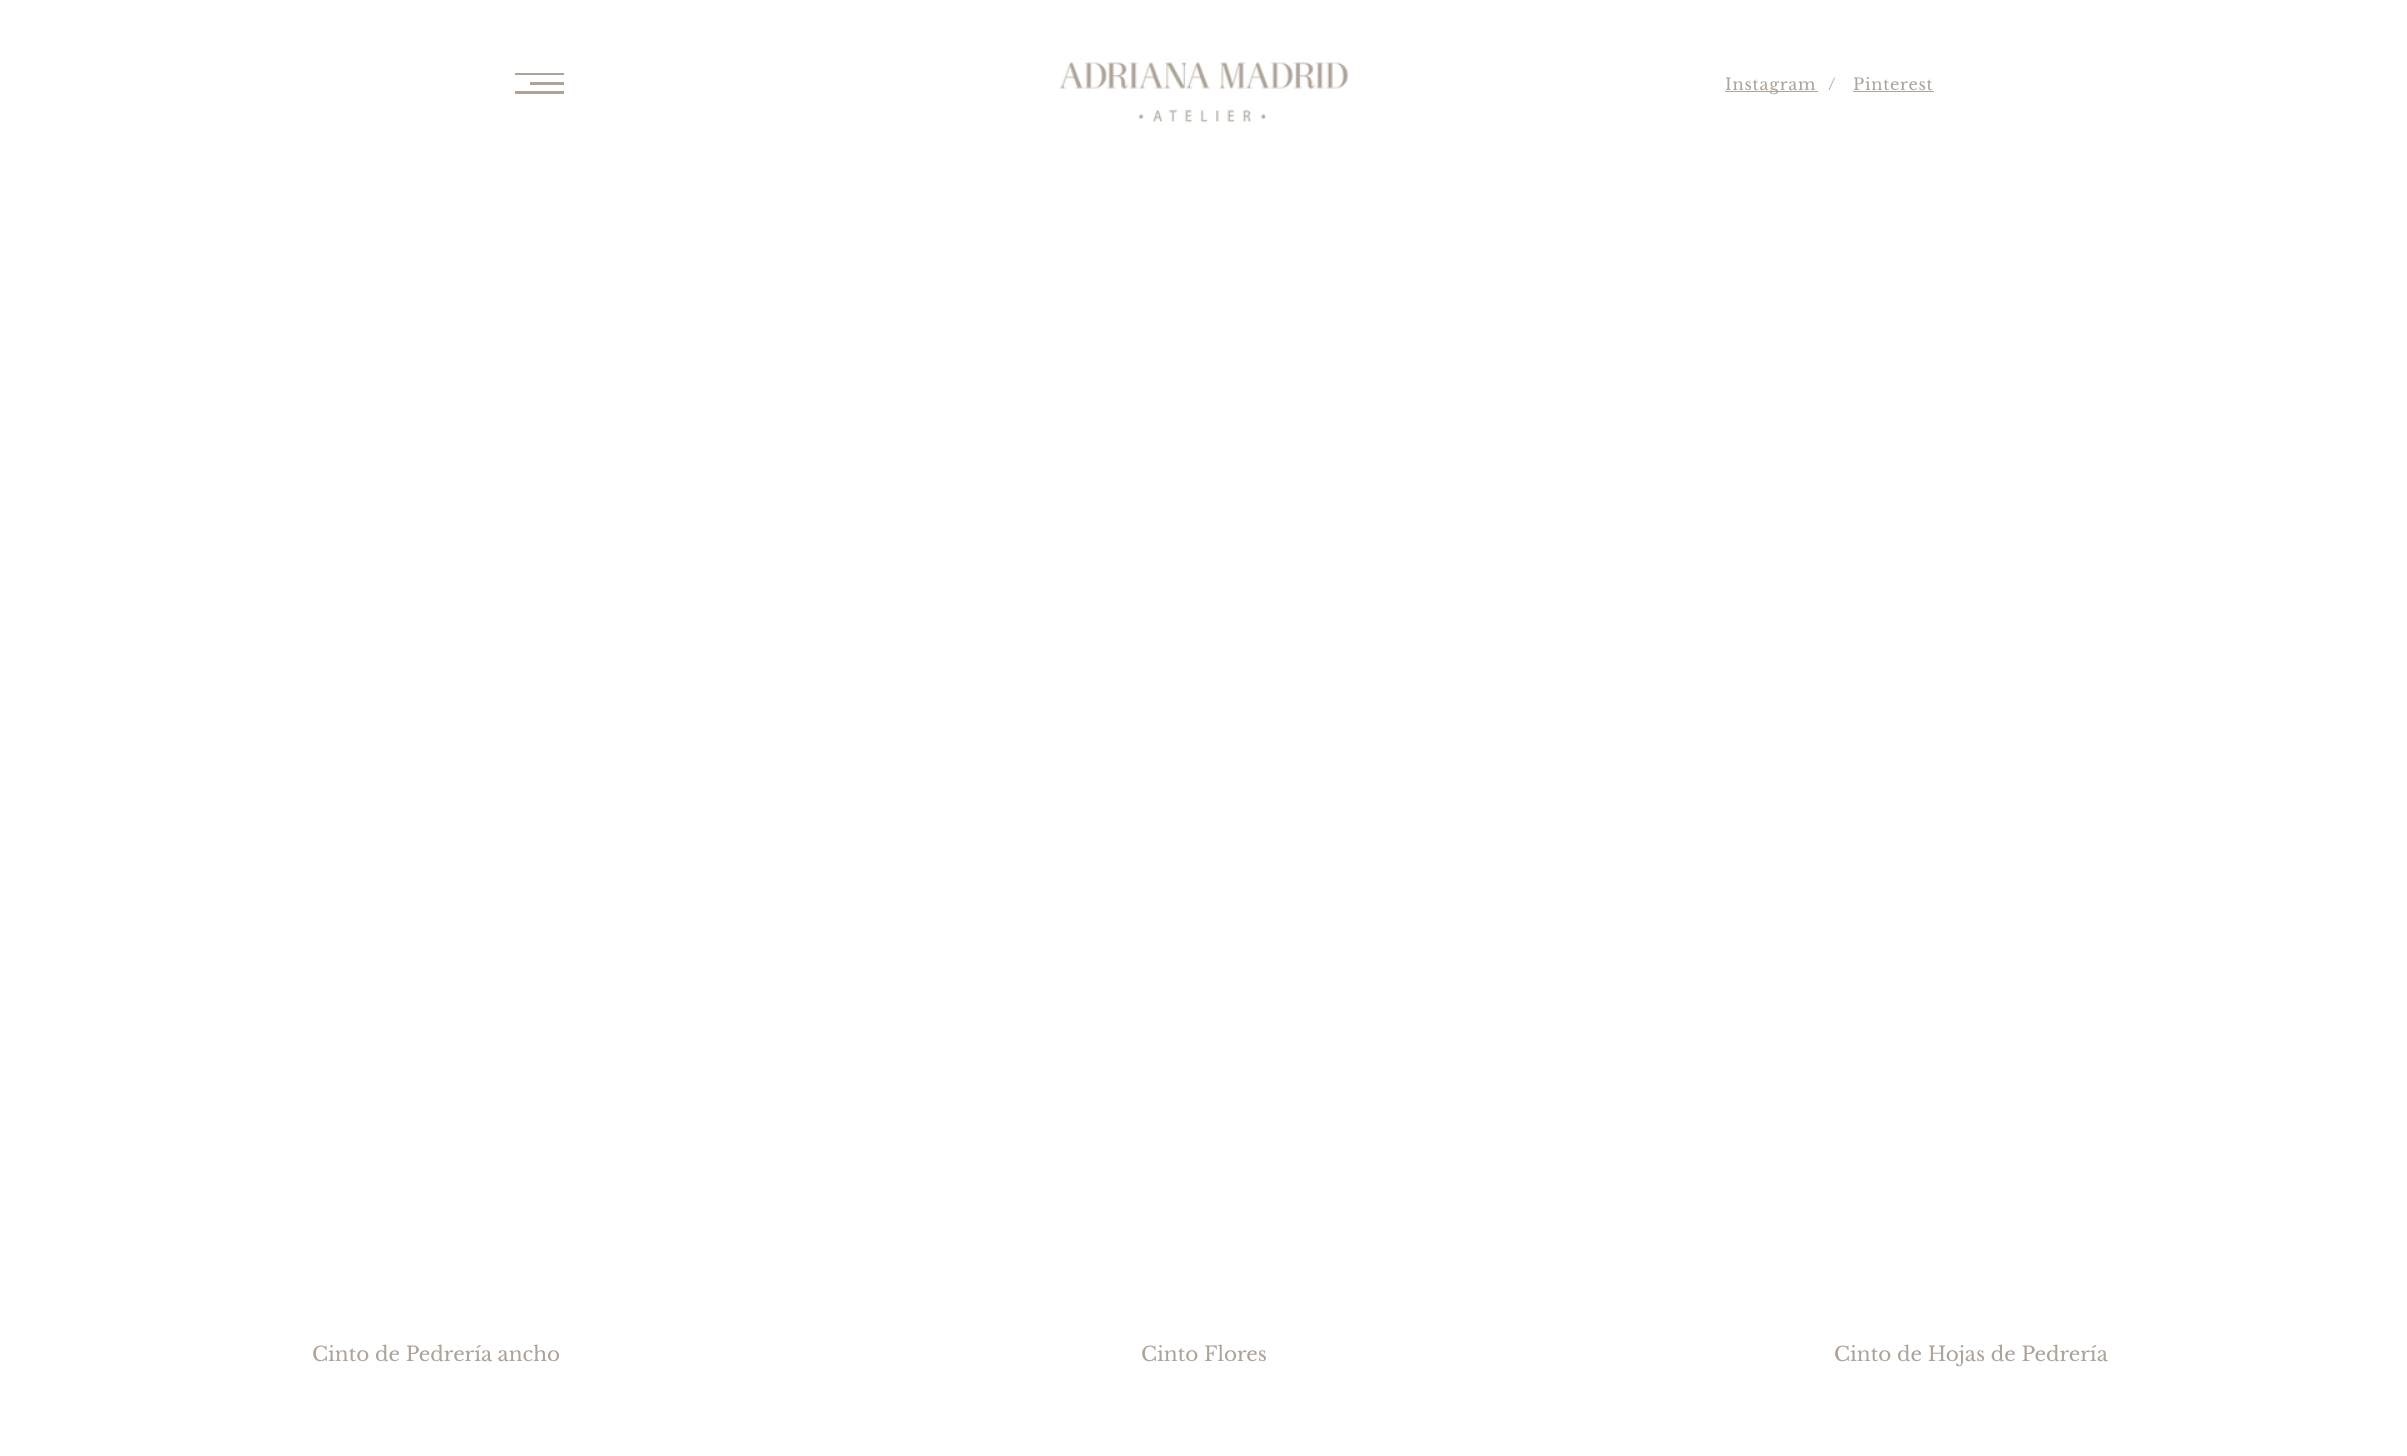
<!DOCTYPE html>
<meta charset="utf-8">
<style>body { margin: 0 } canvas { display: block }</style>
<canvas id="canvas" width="2407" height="1456"></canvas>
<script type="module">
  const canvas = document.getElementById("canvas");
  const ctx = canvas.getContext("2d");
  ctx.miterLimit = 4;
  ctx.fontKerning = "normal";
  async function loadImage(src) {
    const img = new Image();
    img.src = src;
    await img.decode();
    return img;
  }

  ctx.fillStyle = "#ffffff";
  ctx.fillRect(0, 0, 2407, 1456);
  ctx.fillStyle = "#aea399";
  ctx.fillRect(515, 73, 49, 2);
  ctx.fillRect(530, 82, 34, 3);
  ctx.fillRect(515, 91, 49, 3);
  ctx.drawImage(await loadImage("img1.png"), 1059, 62, 290, 61);
  ctx.fillRect(1725, 91, 93, 1);
  ctx.letterSpacing = "0.75px";
  ctx.font = "16.25px Libre Baskerville";
  ctx.fillText("Instagram", 1725, 90);
  ctx.fillText("/", 1828, 90);
  ctx.fillText("Pinterest", 1853, 90);
  ctx.fillRect(1853, 91, 81, 1);
  ctx.letterSpacing = "0px";
  ctx.font = "20px Libre Baskerville";
  ctx.fillText("Cinto de Pedrería ancho", 312, 1361);
  ctx.fillText("Cinto Flores", 1141, 1361);
  ctx.fillText("Cinto de Hojas de Pedrería", 1834, 1361);
</script>
